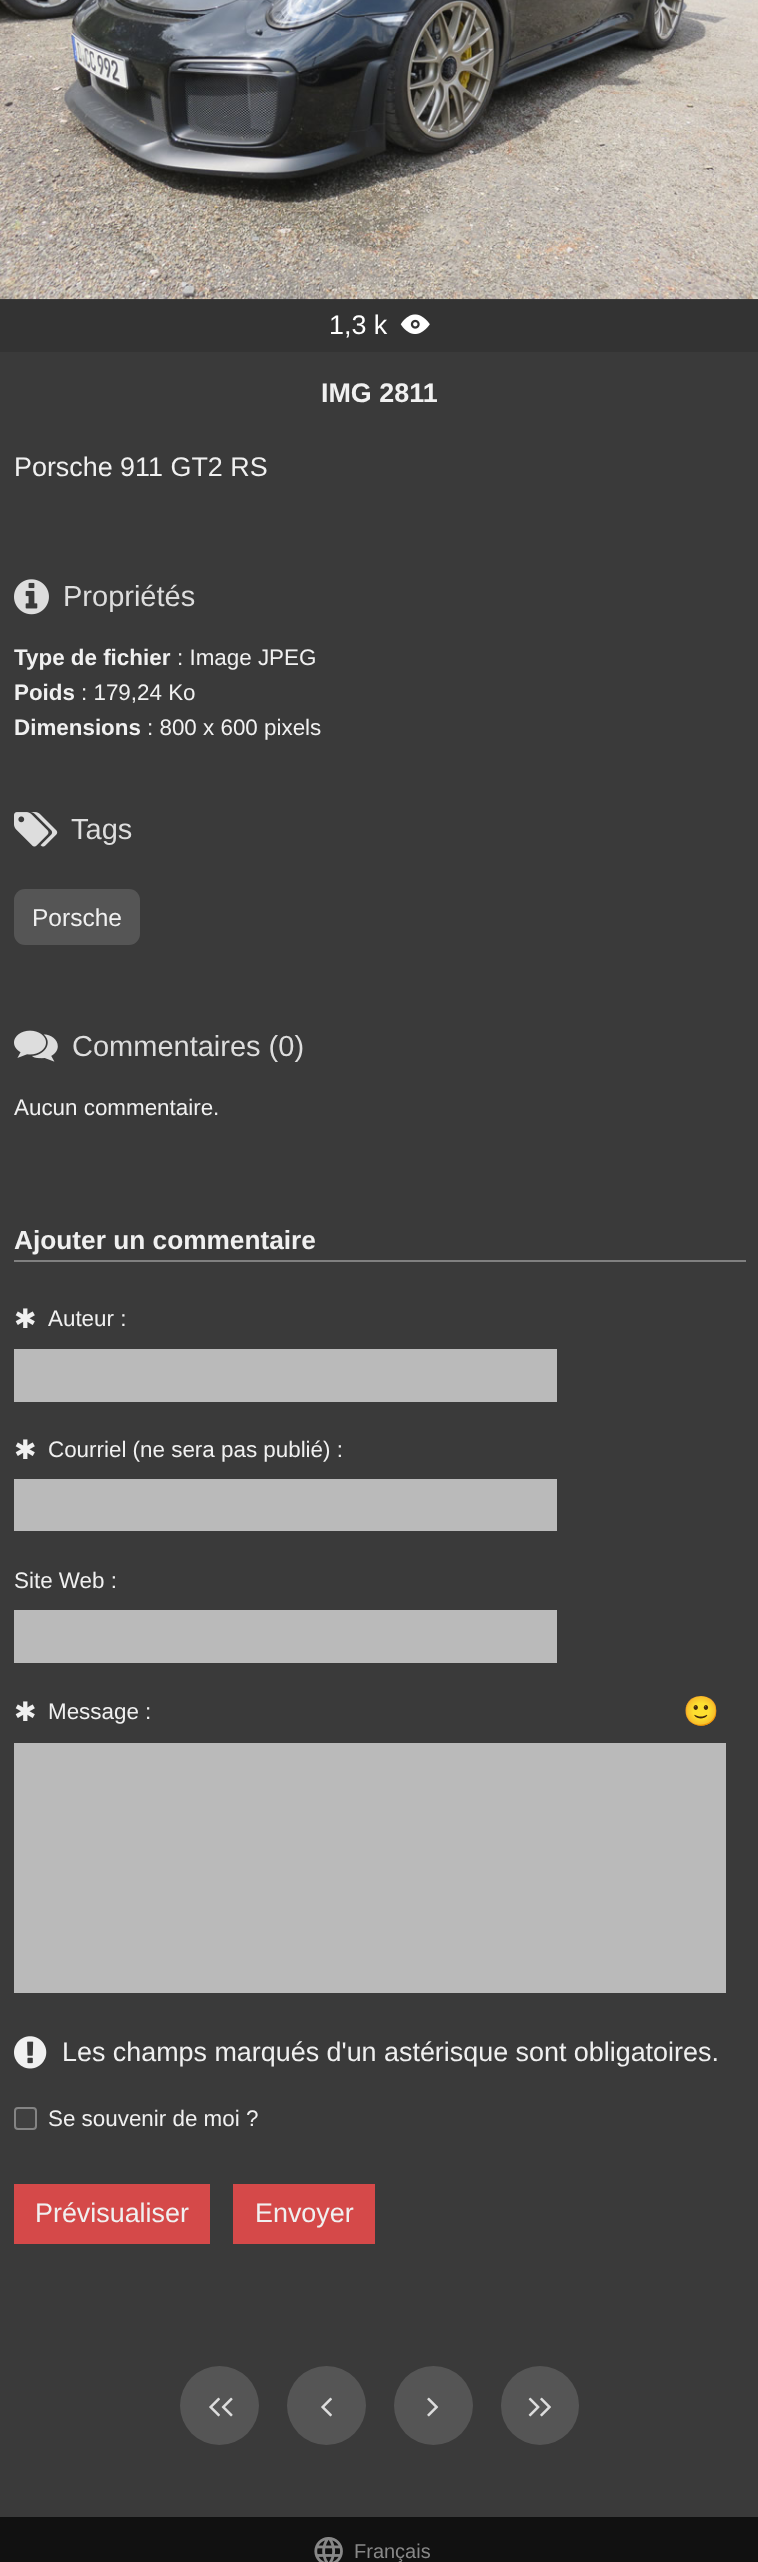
<!DOCTYPE html>
<meta charset="utf-8">
<style>body { margin: 0 } canvas { display: block }</style>
<canvas id="canvas" width="758" height="2562"></canvas>
<script type="module">
  const canvas = document.getElementById("canvas");
  const ctx = canvas.getContext("2d");
  ctx.miterLimit = 4;
  ctx.fontKerning = "normal";
  async function loadImage(src) {
    const img = new Image();
    img.src = src;
    await img.decode();
    return img;
  }

  ctx.fillStyle = "#111111";
  ctx.fillRect(0, 0, 758, 2562);
  ctx.fillStyle = "#3a3a3a";
  ctx.fillRect(0, 352, 758, 2165);
  ctx.fillStyle = "#333333";
  ctx.fillRect(0, 299, 758, 53);
  ctx.drawImage(await loadImage("img1.png"), 0, 0, 758, 300);
  ctx.font = "26.9px Liberation Sans";
  ctx.fillStyle = "#ffffff";
  ctx.fillText("1,3 k", 329, 334);
  ctx.drawImage(await loadImage("img2.png"), 400, 314, 30, 20);
  ctx.font = "bold 26.9px Liberation Sans";
  ctx.fillStyle = "#f0f0f0";
  ctx.fillText("IMG 2811", 321, 402);
  ctx.font = "26.9px Liberation Sans";
  ctx.fillText("Porsche 911 GT2 RS", 14, 476);
  ctx.drawImage(await loadImage("img3.png"), 14, 579, 35, 36);
  ctx.font = "29px Liberation Sans";
  ctx.fillStyle = "#dddddd";
  ctx.fillText("Propriétés", 63, 606);
  ctx.font = "bold 22.4px Liberation Sans";
  ctx.fillStyle = "#f0f0f0";
  ctx.fillText("Type de fichier", 14, 665);
  ctx.font = "22.4px Liberation Sans";
  ctx.fillText(": Image JPEG", 177, 665);
  ctx.font = "bold 22.4px Liberation Sans";
  ctx.fillText("Poids", 14, 700);
  ctx.font = "22.4px Liberation Sans";
  ctx.fillText(": 179,24 Ko", 81, 700);
  ctx.font = "bold 22.4px Liberation Sans";
  ctx.fillText("Dimensions", 14, 735);
  ctx.font = "22.4px Liberation Sans";
  ctx.fillText(": 800 x 600 pixels", 147, 735);
  ctx.drawImage(await loadImage("img4.png"), 14, 812, 44, 35);
  ctx.font = "29px Liberation Sans";
  ctx.fillStyle = "#dddddd";
  ctx.fillText("Tags", 71, 839);
  ctx.fillStyle = "#555555";
  ctx.beginPath();
  ctx.roundRect(14, 889, 126, 56, 11);
  ctx.fill();
  ctx.font = "24.5px Liberation Sans";
  ctx.fillStyle = "#f0f0f0";
  ctx.fillText("Porsche", 32, 926);
  ctx.drawImage(await loadImage("img5.png"), 14, 1030, 44, 32);
  ctx.font = "29px Liberation Sans";
  ctx.fillStyle = "#dddddd";
  ctx.fillText("Commentaires (0)", 72, 1056);
  ctx.font = "22.4px Liberation Sans";
  ctx.fillStyle = "#f0f0f0";
  ctx.fillText("Aucun commentaire.", 14, 1115);
  ctx.fillStyle = "#808080";
  ctx.fillRect(14, 1260, 732, 2);
  ctx.font = "bold 26.25px Liberation Sans";
  ctx.fillStyle = "#f0f0f0";
  ctx.fillText("Ajouter un commentaire", 14, 1249);
  ctx.font = "26.9px DejaVu Sans";
  ctx.fillText("✱", 14, 1328);
  ctx.font = "22.4px Liberation Sans";
  ctx.fillText("Auteur :", 48, 1326);
  ctx.fillStyle = "#bababa";
  ctx.fillRect(14, 1349, 543, 53);
  ctx.font = "26.9px DejaVu Sans";
  ctx.fillStyle = "#f0f0f0";
  ctx.fillText("✱", 14, 1459);
  ctx.font = "22.4px Liberation Sans";
  ctx.fillText("Courriel (ne sera pas publié) :", 48, 1457);
  ctx.fillStyle = "#bababa";
  ctx.fillRect(14, 1479, 543, 52);
  ctx.fillStyle = "#f0f0f0";
  ctx.fillText("Site Web :", 14, 1588);
  ctx.fillStyle = "#bababa";
  ctx.fillRect(14, 1610, 543, 53);
  ctx.font = "26.9px DejaVu Sans";
  ctx.fillStyle = "#f0f0f0";
  ctx.fillText("✱", 14, 1721);
  ctx.font = "22.4px Liberation Sans";
  ctx.fillText("Message :", 48, 1719);
  ctx.font = "29px Noto Color Emoji";
  ctx.fillText("🙂", 683, 1721);
  ctx.fillStyle = "#bababa";
  ctx.fillRect(14, 1743, 712, 250);
  ctx.drawImage(await loadImage("img6.png"), 14, 2036, 33, 33);
  ctx.font = "26.9px Liberation Sans";
  ctx.fillStyle = "#f0f0f0";
  ctx.fillText("Les champs marqués d'un astérisque sont obligatoires.", 62, 2061);
  ctx.fillStyle = "#404040";
  ctx.beginPath();
  ctx.roundRect(15, 2108, 21, 21, 3);
  ctx.fill();
  ctx.strokeStyle = "#848484";
  ctx.lineWidth = 2;
  ctx.stroke();
  ctx.font = "22.4px Liberation Sans";
  ctx.fillStyle = "#f0f0f0";
  ctx.fillText("Se souvenir de moi ?", 48, 2126);
  ctx.fillStyle = "#d54949";
  ctx.fillRect(14, 2184, 196, 60);
  ctx.font = "26.9px Liberation Sans";
  ctx.fillStyle = "#f0f0f0";
  ctx.fillText("Prévisualiser", 35, 2222);
  ctx.fillStyle = "#d54949";
  ctx.fillRect(233, 2184, 142, 60);
  ctx.fillStyle = "#f0f0f0";
  ctx.fillText("Envoyer", 255, 2222);
  ctx.fillStyle = "#555555";
  ctx.beginPath();
  ctx.arc(219.5, 2405.5, 39.5, 0, Math.PI * 2);
  ctx.fill();
  ctx.drawImage(await loadImage("img7.png"), 209, 2397, 24, 20);
  ctx.beginPath();
  ctx.arc(326.5, 2405.5, 39.5, 0, Math.PI * 2);
  ctx.fill();
  ctx.drawImage(await loadImage("img8.png"), 321, 2397, 11, 20);
  ctx.beginPath();
  ctx.arc(433.5, 2405.5, 39.5, 0, Math.PI * 2);
  ctx.fill();
  ctx.drawImage(await loadImage("img9.png"), 427, 2397, 12, 20);
  ctx.beginPath();
  ctx.roundRect(501, 2366, 78, 79, 39);
  ctx.fill();
  ctx.drawImage(await loadImage("img10.png"), 528, 2397, 23, 20);
  ctx.drawImage(await loadImage("img11.png"), 314, 2537, 29, 25);
  ctx.font = "20px Liberation Sans";
  ctx.fillStyle = "#888888";
  ctx.fillText("Français", 354, 2558);
</script>
